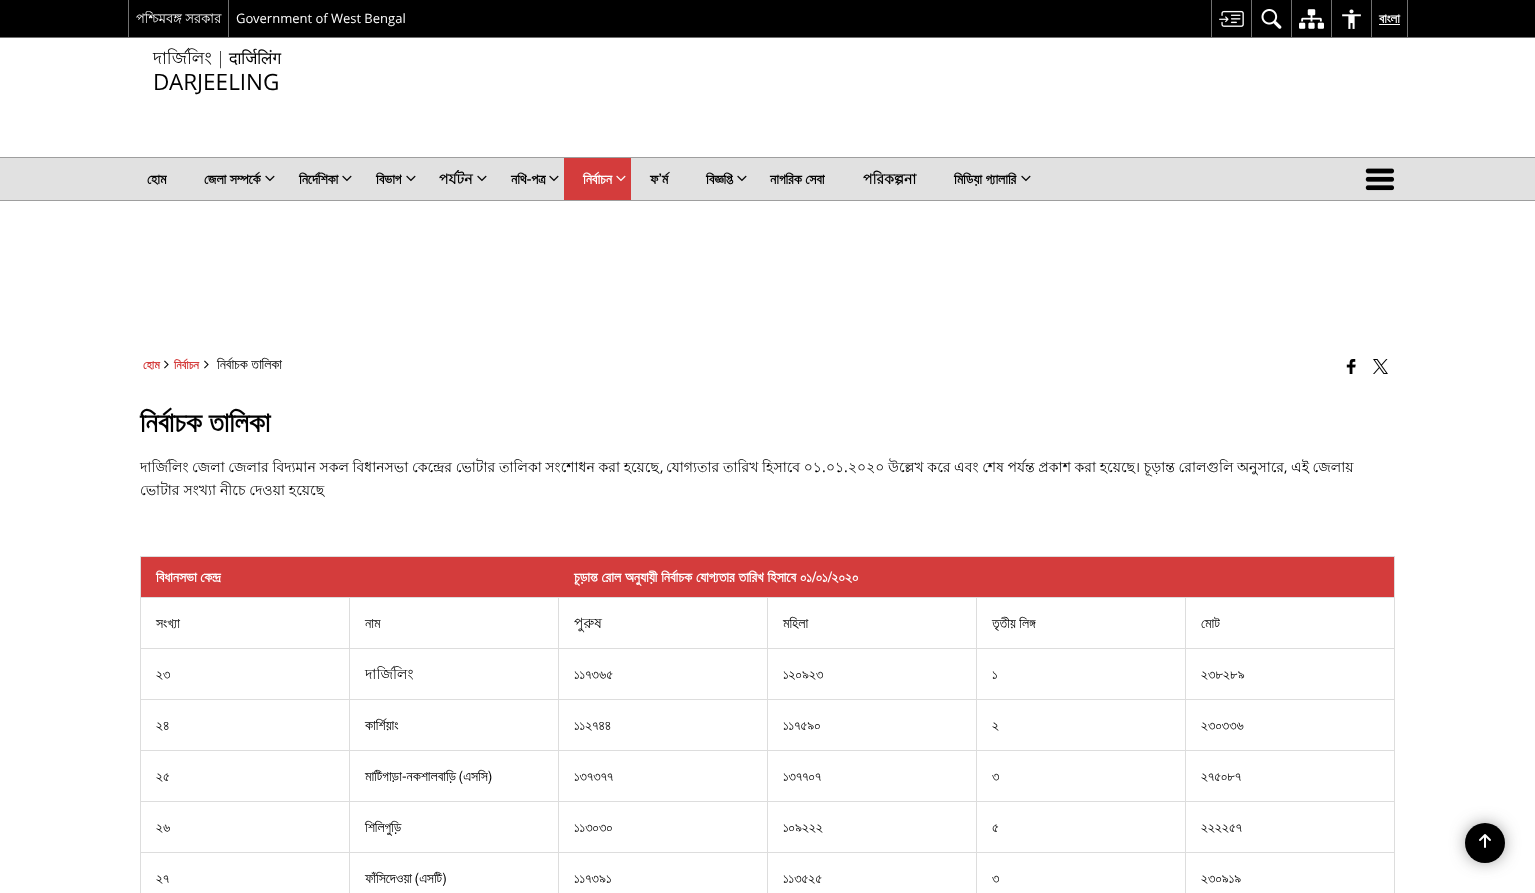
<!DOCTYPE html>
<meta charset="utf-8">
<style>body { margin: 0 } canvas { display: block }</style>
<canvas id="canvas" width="1535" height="893"></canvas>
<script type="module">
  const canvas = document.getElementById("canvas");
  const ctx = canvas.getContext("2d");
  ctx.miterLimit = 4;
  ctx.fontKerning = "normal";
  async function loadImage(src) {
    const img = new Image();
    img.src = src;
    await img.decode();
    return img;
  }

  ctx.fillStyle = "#ffffff";
  ctx.fillRect(0, 0, 1535, 893);
  ctx.fillStyle = "#000000";
  ctx.fillRect(0, 0, 1535, 37);
  ctx.fillStyle = "#707070";
  ctx.fillRect(0, 37, 1535, 1);
  ctx.fillRect(128, 0, 1, 37);
  ctx.font = "13px Lohit Bengali";
  ctx.fillStyle = "#ffffff";
  ctx.fillText("পশ্চিমবঙ্গ সরকার", 136, 23);
  ctx.fillStyle = "#707070";
  ctx.fillRect(228, 0, 1, 37);
  ctx.font = "13px Open Sans";
  ctx.fillStyle = "#ffffff";
  ctx.fillText("Government of West Bengal", 236, 23);
  ctx.fillStyle = "#707070";
  ctx.fillRect(1211, 0, 1, 37);
  ctx.drawImage(await loadImage("img1.png"), 1219, 10, 25, 17);
  ctx.fillRect(1251, 0, 1, 37);
  ctx.drawImage(await loadImage("img2.png"), 1261, 9, 21, 20);
  ctx.fillRect(1291, 0, 1, 37);
  ctx.drawImage(await loadImage("img3.png"), 1299, 9, 25, 20);
  ctx.fillRect(1331, 0, 1, 37);
  ctx.drawImage(await loadImage("img4.png"), 1342, 9, 19, 20);
  ctx.fillRect(1407, 0, 1, 37);
  ctx.fillRect(1371, 0, 1, 37);
  ctx.font = "bold 13px FreeSans";
  ctx.fillStyle = "#ffffff";
  ctx.fillText("বাংলা", 1379, 23);
  ctx.fillRect(1379, 24, 21, 1);
  ctx.font = "17px Lohit Bengali";
  ctx.fillStyle = "#000000";
  ctx.fillText("দার্জিলিং", 153, 64);
  ctx.font = "300 17px Open Sans";
  ctx.fillText("|", 216, 64);
  ctx.font = "17px FreeSans";
  ctx.fillText("दार्जिलिंग", 229, 64);
  ctx.font = "22.5px Open Sans";
  ctx.fillText("DARJEELING", 153, 90);
  ctx.fillStyle = "#e1e1e1";
  ctx.fillRect(0, 158, 1535, 42);
  ctx.fillStyle = "#9e9e9e";
  ctx.fillRect(0, 157, 1535, 1);
  ctx.fillRect(0, 200, 1535, 1);
  ctx.font = "bold 14px FreeSans";
  ctx.fillStyle = "#000000";
  ctx.fillText("হোম", 147, 184);
  ctx.fillText("জেলা সম্পর্কে", 204, 184);
  ctx.drawImage(await loadImage("img5.png"), 265, 175, 10, 7);
  ctx.fillText("নির্দেশিকা", 299, 184);
  ctx.drawImage(await loadImage("img5.png"), 342, 175, 10, 7);
  ctx.fillText("বিভাগ", 376, 184);
  ctx.drawImage(await loadImage("img5.png"), 406, 175, 10, 7);
  ctx.font = "bold 14px Lohit Bengali";
  ctx.fillText("পর্যটন", 439, 184);
  ctx.drawImage(await loadImage("img5.png"), 477, 175, 10, 7);
  ctx.font = "bold 14px FreeSans";
  ctx.fillText("নথি-পত্র", 511, 184);
  ctx.drawImage(await loadImage("img5.png"), 549, 175, 10, 7);
  ctx.fillStyle = "#d43c3c";
  ctx.fillRect(564, 158, 67, 42);
  ctx.fillStyle = "#ffffff";
  ctx.fillText("নির্বাচন", 583, 184);
  ctx.drawImage(await loadImage("img6.png"), 616, 175, 10, 7);
  ctx.fillStyle = "#000000";
  ctx.fillText("ফ’ৰ্ম", 650, 184);
  ctx.fillText("বিজ্ঞপ্তি", 706, 184);
  ctx.drawImage(await loadImage("img5.png"), 737, 175, 10, 7);
  ctx.fillText("নাগরিক সেবা", 770, 184);
  ctx.font = "bold 14px Lohit Bengali";
  ctx.fillText("পরিকল্পনা", 863, 184);
  ctx.font = "bold 14px FreeSans";
  ctx.fillText("মিডিয়া গ্যালারি", 954, 184);
  ctx.drawImage(await loadImage("img5.png"), 1021, 175, 10, 7);
  ctx.drawImage(await loadImage("img7.png"), 1365, 168, 30, 23);
  ctx.font = "bold 12px FreeSans";
  ctx.fillStyle = "#d43c3c";
  ctx.fillText("হোম", 143, 369);
  ctx.drawImage(await loadImage("img8.png"), 164, 360, 5, 9);
  ctx.fillText("নির্বাচন", 174, 369);
  ctx.drawImage(await loadImage("img8.png"), 204, 360, 5, 9);
  ctx.font = "14px FreeSans";
  ctx.fillStyle = "#000000";
  ctx.fillText("নির্বাচক তালিকা", 217, 369);
  ctx.drawImage(await loadImage("img9.png"), 1346, 359, 10, 15);
  ctx.drawImage(await loadImage("img10.png"), 1373, 359, 15, 15);
  ctx.font = "bold 28px FreeSans";
  ctx.fillText("নির্বাচক তালিকা", 140, 432);
  ctx.wordSpacing = "-0.25px";
  ctx.font = "14px Lohit Bengali";
  ctx.fillText("দার্জিলিং জেলা জেলার বিদ্যমান সকল বিধানসভা কেন্দ্রের ভোটার তালিকা সংশোধন করা হয়েছে", 140, 472);
  ctx.wordSpacing = "0px";
  ctx.font = "14px Open Sans";
  ctx.fillText(",", 660, 472);
  ctx.wordSpacing = "-0.25px";
  ctx.font = "14px Lohit Bengali";
  ctx.fillText("যোগ্যতার তারিখ হিসাবে ০১", 666, 472);
  ctx.wordSpacing = "0px";
  ctx.font = "14px Open Sans";
  ctx.fillText(".", 822, 472);
  ctx.font = "14px Lohit Bengali";
  ctx.fillText("০১", 826, 472);
  ctx.font = "14px Open Sans";
  ctx.fillText(".", 844, 472);
  ctx.wordSpacing = "-0.25px";
  ctx.font = "14px Lohit Bengali";
  ctx.fillText("২০২০ উল্লেখ করে এবং শেষ পর্যন্ত প্রকাশ করা হয়েছে। চূড়ান্ত রোলগুলি অনুসারে", 848, 472);
  ctx.wordSpacing = "0px";
  ctx.font = "14px Open Sans";
  ctx.fillText(",", 1284, 472);
  ctx.wordSpacing = "-0.25px";
  ctx.font = "14px Lohit Bengali";
  ctx.fillText("এই জেলায়", 1291, 472);
  ctx.wordSpacing = "0px";
  ctx.fillText("ভোটার সংখ্যা নীচে দেওয়া হয়েছে", 140, 495);
  ctx.fillStyle = "#dddddd";
  ctx.fillRect(140, 556, 1255, 1);
  ctx.fillRect(1394, 556, 1, 337);
  ctx.fillRect(140, 556, 1, 337);
  ctx.fillStyle = "#d43c3c";
  ctx.fillRect(141, 557, 1253, 40);
  ctx.font = "bold 14px FreeSans";
  ctx.fillStyle = "#ffffff";
  ctx.fillText("বিধানসভা কেন্দ্র", 156, 582);
  ctx.wordSpacing = "0.5px";
  ctx.fillText("চূড়ান্ত রোল অনুযায়ী নির্বাচক যোগ্যতার তারিখ হিসাবে ০১/০১/২০২০", 574, 582);
  ctx.fillStyle = "#dddddd";
  ctx.fillRect(140, 597, 1255, 1);
  ctx.fillRect(140, 648, 1255, 1);
  ctx.fillRect(140, 699, 1255, 1);
  ctx.fillRect(140, 750, 1255, 1);
  ctx.fillRect(140, 801, 1255, 1);
  ctx.fillRect(140, 852, 1255, 1);
  ctx.fillRect(349, 852, 1, 41);
  ctx.fillRect(349, 801, 1, 52);
  ctx.fillRect(349, 750, 1, 52);
  ctx.fillRect(349, 699, 1, 52);
  ctx.fillRect(349, 648, 1, 52);
  ctx.fillRect(349, 597, 1, 52);
  ctx.wordSpacing = "0px";
  ctx.font = "14px FreeSans";
  ctx.fillStyle = "#000000";
  ctx.fillText("সংখ্যা", 156, 628);
  ctx.fillStyle = "#dddddd";
  ctx.fillRect(558, 852, 1, 41);
  ctx.fillRect(558, 801, 1, 52);
  ctx.fillRect(558, 750, 1, 52);
  ctx.fillRect(558, 699, 1, 52);
  ctx.fillRect(558, 648, 1, 52);
  ctx.fillRect(558, 597, 1, 52);
  ctx.fillStyle = "#000000";
  ctx.fillText("নাম", 365, 628);
  ctx.fillStyle = "#dddddd";
  ctx.fillRect(767, 852, 1, 41);
  ctx.fillRect(767, 801, 1, 52);
  ctx.fillRect(767, 750, 1, 52);
  ctx.fillRect(767, 699, 1, 52);
  ctx.fillRect(767, 648, 1, 52);
  ctx.fillRect(767, 597, 1, 52);
  ctx.font = "14px Lohit Bengali";
  ctx.fillStyle = "#000000";
  ctx.fillText("পুরুষ", 574, 628);
  ctx.fillStyle = "#dddddd";
  ctx.fillRect(976, 852, 1, 41);
  ctx.fillRect(976, 801, 1, 52);
  ctx.fillRect(976, 750, 1, 52);
  ctx.fillRect(976, 699, 1, 52);
  ctx.fillRect(976, 648, 1, 52);
  ctx.fillRect(976, 597, 1, 52);
  ctx.font = "14px FreeSans";
  ctx.fillStyle = "#000000";
  ctx.fillText("মহিলা", 783, 628);
  ctx.fillStyle = "#dddddd";
  ctx.fillRect(1185, 852, 1, 41);
  ctx.fillRect(1185, 801, 1, 52);
  ctx.fillRect(1185, 750, 1, 52);
  ctx.fillRect(1185, 699, 1, 52);
  ctx.fillRect(1185, 648, 1, 52);
  ctx.fillRect(1185, 597, 1, 52);
  ctx.fillStyle = "#000000";
  ctx.fillText("তৃতীয় লিঙ্গ", 992, 628);
  ctx.fillText("মোট", 1201, 628);
  ctx.fillText("২৩", 156, 679);
  ctx.font = "14px Lohit Bengali";
  ctx.fillText("দার্জিলিং", 365, 679);
  ctx.font = "14px FreeSans";
  ctx.fillText("১১৭৩৬৫", 574, 679);
  ctx.fillText("১২০৯২৩", 783, 679);
  ctx.fillText("১", 992, 679);
  ctx.fillText("২৩৮২৮৯", 1201, 679);
  ctx.fillText("২৪", 156, 730);
  ctx.fillText("কার্শিয়াং", 365, 730);
  ctx.fillText("১১২৭৪৪", 574, 730);
  ctx.fillText("১১৭৫৯০", 783, 730);
  ctx.fillText("২", 992, 730);
  ctx.fillText("২৩০৩৩৬", 1201, 730);
  ctx.fillText("২৫", 156, 781);
  ctx.wordSpacing = "-1px";
  ctx.fillText("মাটিগাড়া-নকশালবাড়ি (এসসি)", 365, 781);
  ctx.wordSpacing = "0px";
  ctx.fillText("১৩৭৩৭৭", 574, 781);
  ctx.fillText("১৩৭৭০৭", 783, 781);
  ctx.fillText("৩", 992, 781);
  ctx.fillText("২৭৫০৮৭", 1201, 781);
  ctx.fillText("২৬", 156, 832);
  ctx.fillText("শিলিগুড়ি", 365, 832);
  ctx.fillText("১১৩০৩০", 574, 832);
  ctx.fillText("১০৯২২২", 783, 832);
  ctx.fillText("৫", 992, 832);
  ctx.fillText("২২২২৫৭", 1201, 832);
  ctx.fillText("২৭", 156, 883);
  ctx.wordSpacing = "-1px";
  ctx.fillText("ফাঁসিদেওয়া (এসটি)", 365, 883);
  ctx.wordSpacing = "0px";
  ctx.fillText("১১৭৩৯১", 574, 883);
  ctx.fillText("১১৩৫২৫", 783, 883);
  ctx.fillText("৩", 992, 883);
  ctx.fillText("২৩০৯১৯", 1201, 883);
  ctx.fillStyle = "#3c3c3c";
  ctx.filter = "blur(9.5px)";
  ctx.beginPath();
  ctx.roundRect(1470, 828, 30, 30, 15);
  ctx.fill();
  ctx.filter = "none";
  ctx.fillStyle = "#000000";
  ctx.beginPath();
  ctx.arc(1485, 843, 20, 0, Math.PI * 2);
  ctx.fill();
  ctx.drawImage(await loadImage("img11.png"), 1479, 834, 12, 14);
</script>
